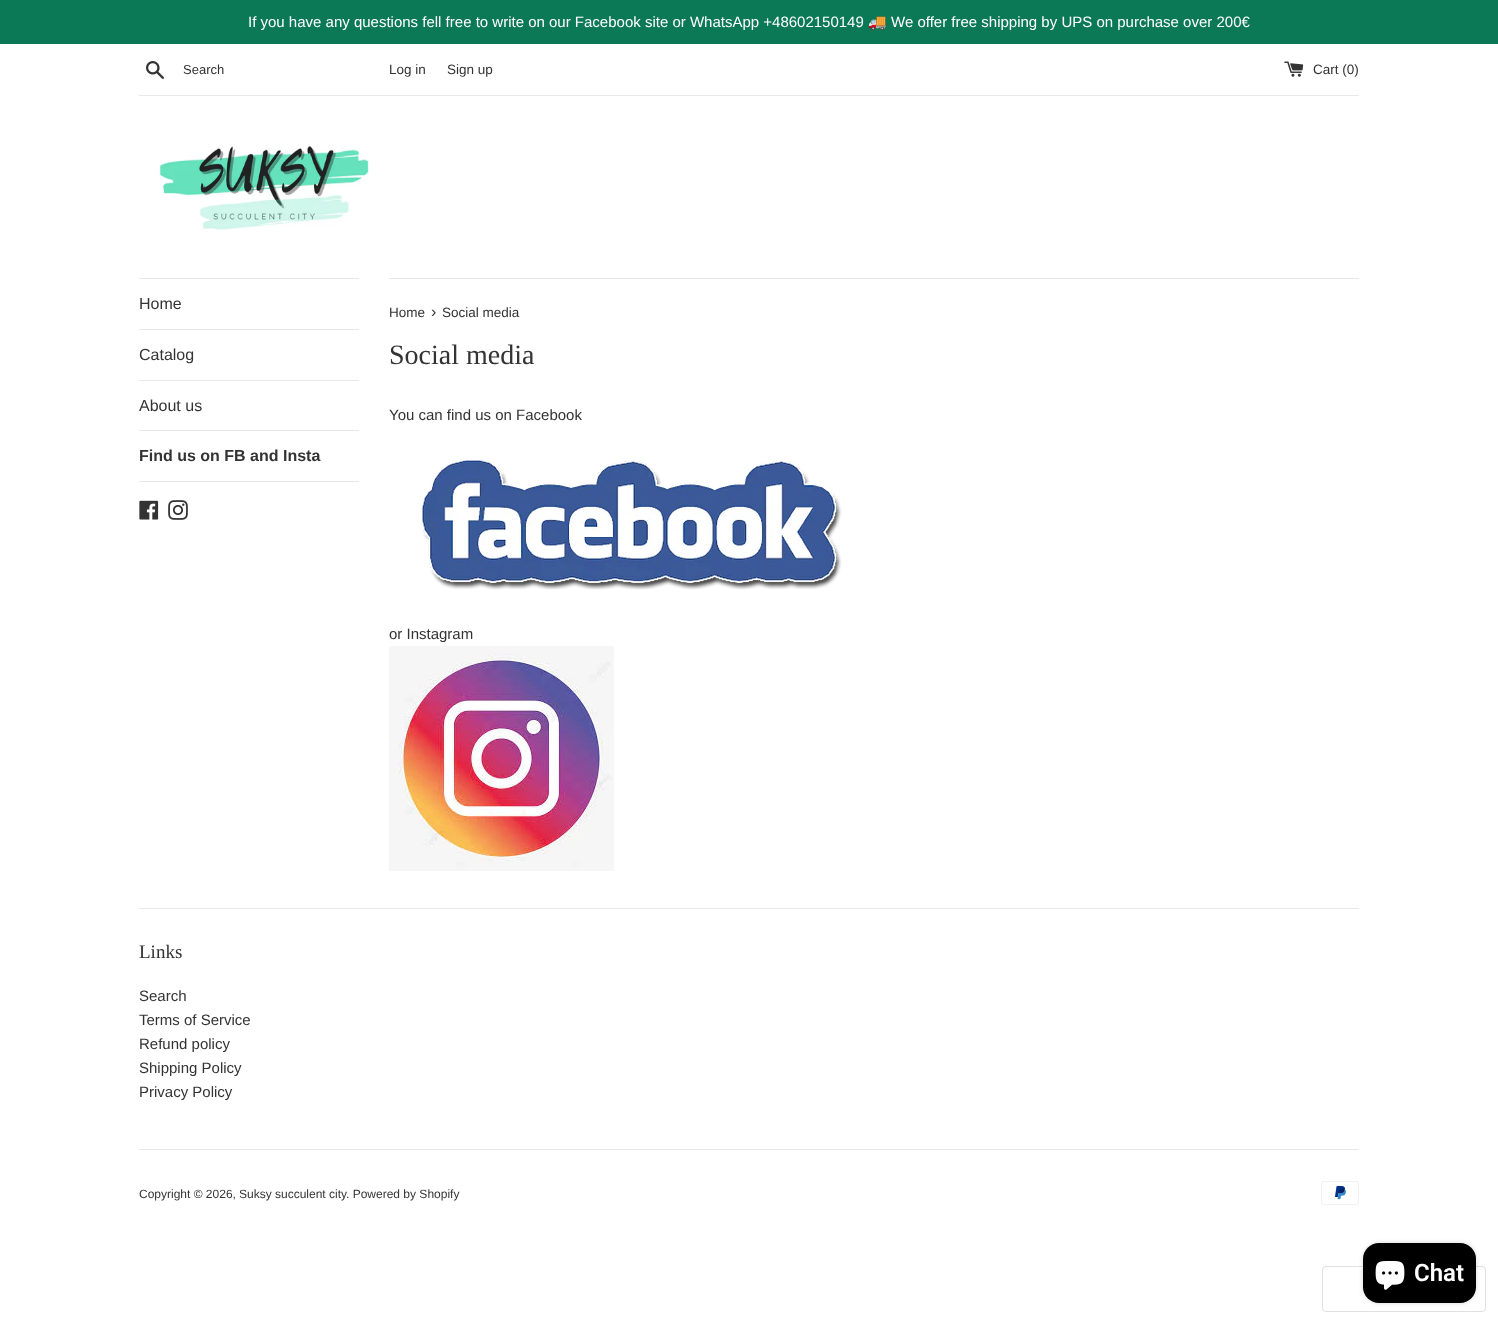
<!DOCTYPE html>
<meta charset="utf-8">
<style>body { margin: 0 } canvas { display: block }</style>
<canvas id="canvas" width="1498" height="1324"></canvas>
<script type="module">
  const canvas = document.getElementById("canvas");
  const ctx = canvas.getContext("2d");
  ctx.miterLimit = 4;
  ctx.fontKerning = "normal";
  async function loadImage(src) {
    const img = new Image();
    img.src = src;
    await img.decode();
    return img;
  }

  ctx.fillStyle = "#ffffff";
  ctx.fillRect(0, 0, 1498, 1324);
  ctx.fillStyle = "#0b7856";
  ctx.fillRect(0, 0, 1498, 44);
  ctx.font = "15px Liberation Sans";
  ctx.fillStyle = "#ffffff";
  ctx.fillText("If you have any questions fell free to write on our Facebook site or WhatsApp +48602150149", 248, 27);
  ctx.font = "15px Noto Color Emoji";
  ctx.fillText("🚚", 868, 27);
  ctx.font = "15px Liberation Sans";
  ctx.fillText("We offer free shipping by UPS on purchase over 200€", 891, 27);
  ctx.drawImage(await loadImage("img1.png"), 146, 61, 18, 18);
  ctx.font = "13px Liberation Sans";
  ctx.fillStyle = "#333333";
  ctx.fillText("Search", 183, 74);
  ctx.font = "13.5px Liberation Sans";
  ctx.fillText("Log in", 389, 74);
  ctx.fillText("Sign up", 447, 74);
  ctx.drawImage(await loadImage("img2.png"), 1284, 61, 20, 16);
  ctx.fillText("Cart (0)", 1313, 74);
  ctx.fillStyle = "#e8e8e8";
  ctx.fillRect(139, 95, 1220, 1);
  ctx.drawImage(await loadImage("img3.png"), 156, 146, 213, 84);
  ctx.fillRect(139, 278, 220, 1);
  ctx.fillRect(139, 329, 220, 1);
  ctx.font = "16px Liberation Sans";
  ctx.fillStyle = "#333333";
  ctx.fillText("Home", 139, 309);
  ctx.fillStyle = "#e8e8e8";
  ctx.fillRect(139, 380, 220, 1);
  ctx.fillStyle = "#333333";
  ctx.fillText("Catalog", 139, 360);
  ctx.fillStyle = "#e8e8e8";
  ctx.fillRect(139, 430, 220, 1);
  ctx.fillStyle = "#333333";
  ctx.fillText("About us", 139, 411);
  ctx.fillStyle = "#e8e8e8";
  ctx.fillRect(139, 481, 220, 1);
  ctx.font = "bold 16px Liberation Sans";
  ctx.fillStyle = "#333333";
  ctx.fillText("Find us on FB and Insta", 139, 461);
  ctx.drawImage(await loadImage("img4.png"), 139, 500, 20, 20);
  ctx.drawImage(await loadImage("img5.png"), 168, 500, 20, 20);
  ctx.fillStyle = "#e8e8e8";
  ctx.fillRect(389, 278, 970, 1);
  ctx.font = "13.5px Liberation Sans";
  ctx.fillStyle = "#333333";
  ctx.fillText("Home", 389, 317);
  ctx.font = "16px Liberation Sans";
  ctx.fillText("›", 431, 317);
  ctx.font = "13.5px Liberation Sans";
  ctx.fillText("Social media", 442, 317);
  ctx.font = "28px Liberation Serif";
  ctx.fillText("Social media", 389, 364);
  ctx.font = "15px Liberation Sans";
  ctx.fillText("You can find us on Facebook", 389, 420);
  ctx.drawImage(await loadImage("img6.png"), 422, 459, 420, 131);
  ctx.fillText("or Instagram", 389, 639);
  ctx.drawImage(await loadImage("img7.png"), 389, 646, 225, 225);
  ctx.fillStyle = "#e8e8e8";
  ctx.fillRect(139, 908, 1220, 1);
  ctx.font = "19px Liberation Serif";
  ctx.fillStyle = "#333333";
  ctx.fillText("Links", 139, 958);
  ctx.font = "15px Liberation Sans";
  ctx.fillText("Search", 139, 1001);
  ctx.fillText("Terms of Service", 139, 1025);
  ctx.fillText("Refund policy", 139, 1049);
  ctx.fillText("Shipping Policy", 139, 1073);
  ctx.fillText("Privacy Policy", 139, 1097);
  ctx.fillStyle = "#e8e8e8";
  ctx.fillRect(139, 1149, 1220, 1);
  ctx.font = "12px Liberation Sans";
  ctx.fillStyle = "#333333";
  ctx.fillText("Copyright © 2026,", 139, 1198);
  ctx.fillText("Suksy succulent city", 239, 1198);
  ctx.fillText(". Powered by Shopify", 346, 1198);
  ctx.drawImage(await loadImage("img8.png"), 1321, 1181, 38, 24);
  ctx.beginPath();
  ctx.roundRect(1322.5, 1266.5, 163, 45, 3.5);
  ctx.strokeStyle = "#e0e0e0";
  ctx.stroke();
  ctx.fillStyle = "rgba(0, 0, 0, 0.15)";
  ctx.filter = "blur(2.5px)";
  ctx.beginPath();
  ctx.roundRect(1363, 1243, 113, 60, 16);
  ctx.fill();
  ctx.filter = "none";
  ctx.fillStyle = "#000000";
  ctx.beginPath();
  ctx.roundRect(1363, 1243, 113, 60, 16);
  ctx.fill();
  ctx.drawImage(await loadImage("img9.png"), 1375, 1261, 30, 29);
  ctx.font = "600 24px Roboto";
  ctx.fillStyle = "#ffffff";
  ctx.fillText("Chat", 1414, 1281);
</script>
